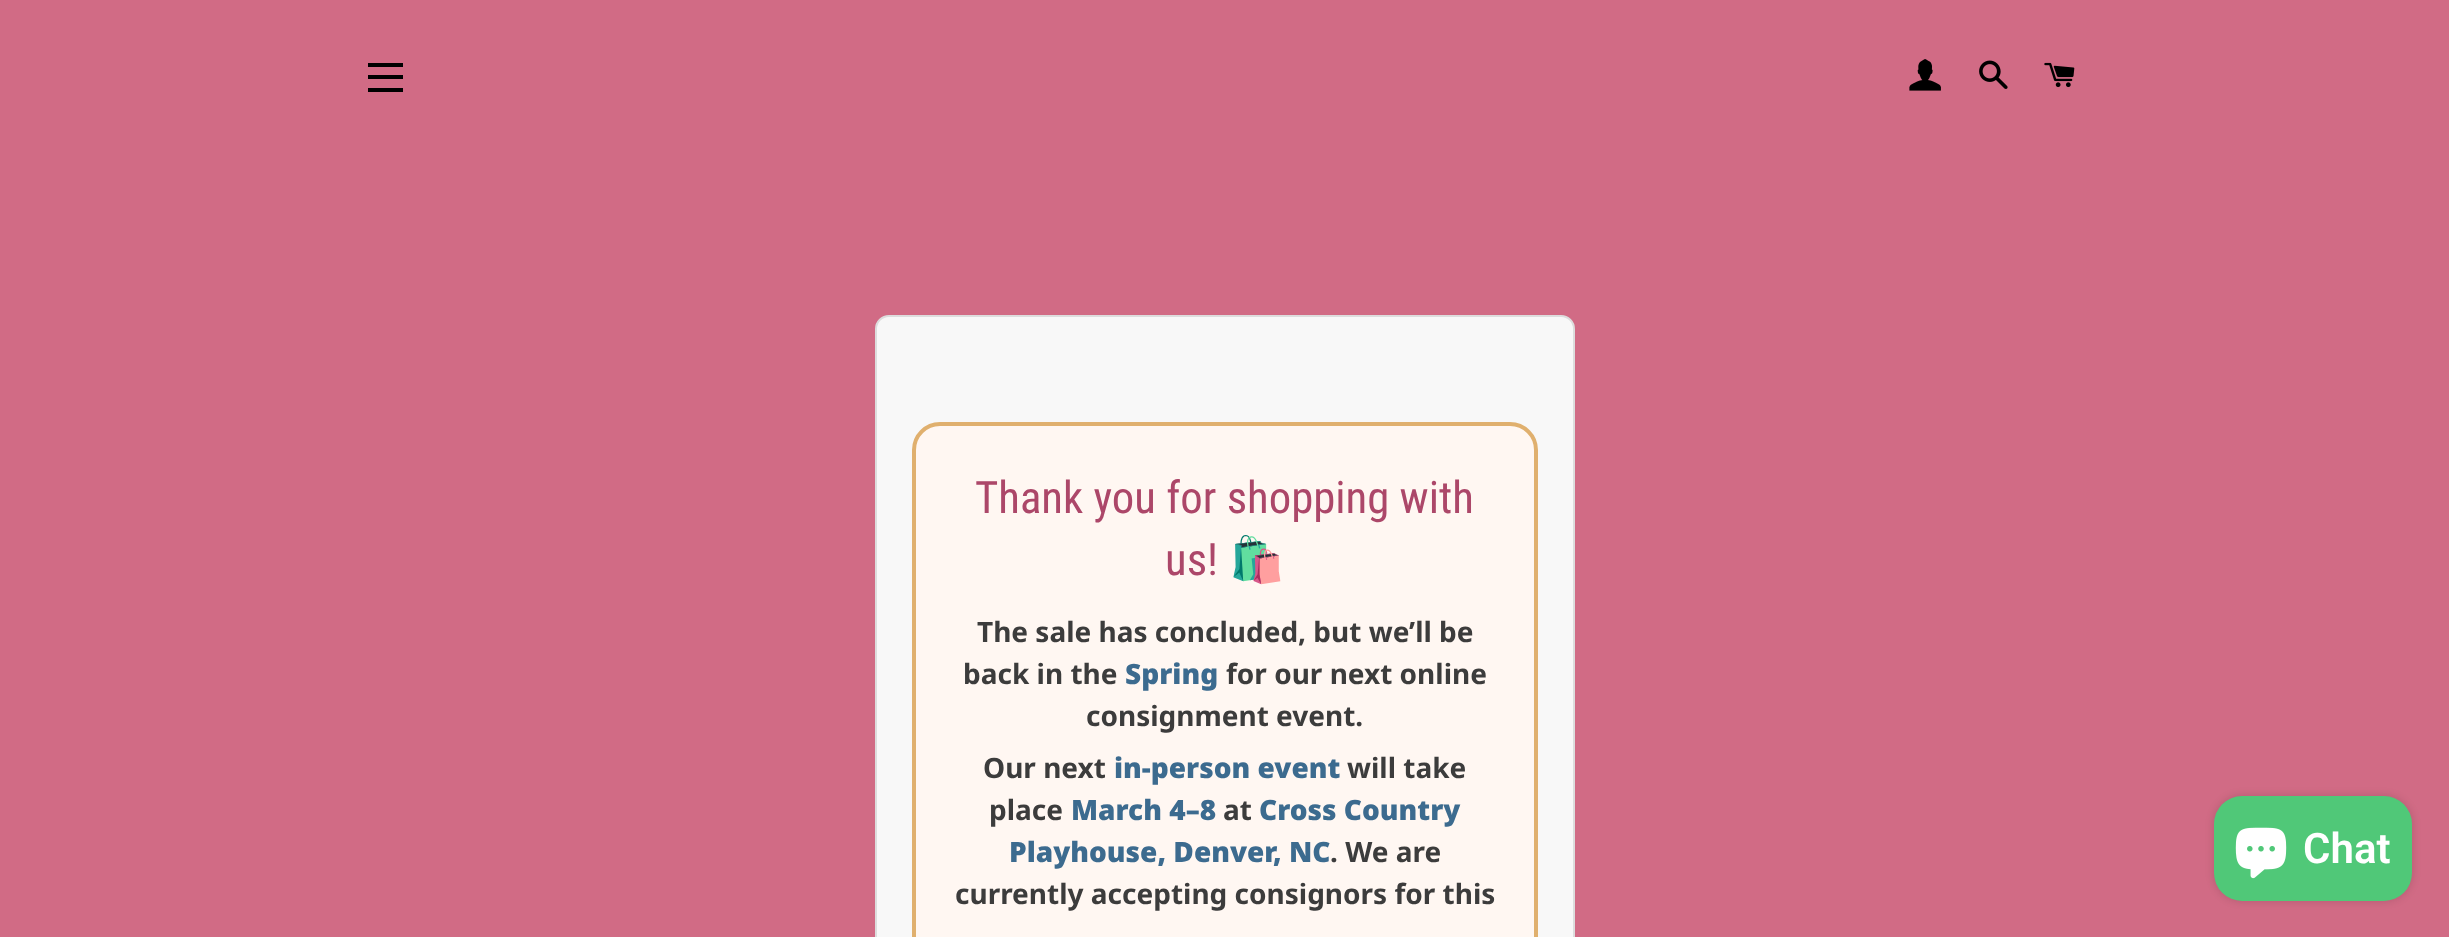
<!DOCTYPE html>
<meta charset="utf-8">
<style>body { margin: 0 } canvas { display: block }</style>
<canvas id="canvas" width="2449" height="937"></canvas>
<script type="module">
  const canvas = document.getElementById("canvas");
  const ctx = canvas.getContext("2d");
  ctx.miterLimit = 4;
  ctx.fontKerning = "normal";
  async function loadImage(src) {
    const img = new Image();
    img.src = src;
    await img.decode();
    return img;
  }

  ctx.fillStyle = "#d16b85";
  ctx.fillRect(0, 0, 2449, 937);
  ctx.fillStyle = "#000000";
  ctx.fillRect(368, 63, 35, 4);
  ctx.fillRect(368, 75, 35, 4);
  ctx.fillRect(368, 88, 35, 4);
  ctx.drawImage(await loadImage("img1.png"), 1909, 59, 32, 32);
  ctx.drawImage(await loadImage("img2.png"), 1979, 60, 29, 29);
  ctx.drawImage(await loadImage("img3.png"), 2044, 62, 31, 26);
  ctx.fillStyle = "#f8f8f8";
  ctx.beginPath();
  ctx.roundRect(876, 316, 698, 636, 13);
  ctx.fill();
  ctx.strokeStyle = "#dddddd";
  ctx.lineWidth = 2;
  ctx.stroke();
  ctx.fillStyle = "#fff7f2";
  ctx.beginPath();
  ctx.roundRect(914, 424, 622, 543, 26);
  ctx.fill();
  ctx.strokeStyle = "#e0b06e";
  ctx.lineWidth = 4;
  ctx.stroke();
  ctx.font = "44.75px Roboto Condensed";
  ctx.fillStyle = "#ac4769";
  ctx.fillText("Thank you for shopping with", 975, 513);
  ctx.fillText("us!", 1165, 575);
  ctx.font = "44.75px Noto Color Emoji";
  ctx.fillText("🛍️", 1229, 575);
  ctx.font = "bold 28px Noto Sans";
  ctx.fillStyle = "#3c3c3c";
  ctx.fillText("The sale has concluded, but we’ll be", 977, 642);
  ctx.fillText("back in the", 963, 684);
  ctx.font = "900 28px Noto Sans";
  ctx.fillStyle = "#3c6b8f";
  ctx.fillText("Spring", 1125, 684);
  ctx.font = "bold 28px Noto Sans";
  ctx.fillStyle = "#3c3c3c";
  ctx.fillText("for our next online", 1226, 684);
  ctx.fillText("consignment event.", 1086, 726);
  ctx.fillText("Our next", 983, 778);
  ctx.font = "900 28px Noto Sans";
  ctx.fillStyle = "#3c6b8f";
  ctx.fillText("in-person event", 1114, 778);
  ctx.font = "bold 28px Noto Sans";
  ctx.fillStyle = "#3c3c3c";
  ctx.fillText("will take", 1347, 778);
  ctx.fillText("place", 989, 820);
  ctx.font = "900 28px Noto Sans";
  ctx.fillStyle = "#3c6b8f";
  ctx.fillText("March 4–8", 1071, 820);
  ctx.font = "bold 28px Noto Sans";
  ctx.fillStyle = "#3c3c3c";
  ctx.fillText("at", 1223, 820);
  ctx.font = "900 28px Noto Sans";
  ctx.fillStyle = "#3c6b8f";
  ctx.fillText("Cross Country", 1259, 820);
  ctx.fillText("Playhouse, Denver, NC", 1009, 862);
  ctx.font = "bold 28px Noto Sans";
  ctx.fillStyle = "#3c3c3c";
  ctx.fillText(". We are", 1330, 862);
  ctx.fillText("currently accepting consignors for this", 955, 904);
  ctx.fillStyle = "rgba(0, 0, 0, 0.15)";
  ctx.filter = "blur(4.5px)";
  ctx.beginPath();
  ctx.roundRect(2214, 796, 198, 105, 28);
  ctx.fill();
  ctx.filter = "none";
  ctx.fillStyle = "#50c878";
  ctx.beginPath();
  ctx.roundRect(2214, 796, 198, 105, 28);
  ctx.fill();
  ctx.drawImage(await loadImage("img4.png"), 2235, 827, 52, 52);
  ctx.font = "600 42px Roboto";
  ctx.fillStyle = "#ffffff";
  ctx.fillText("Chat", 2303, 863);
</script>
